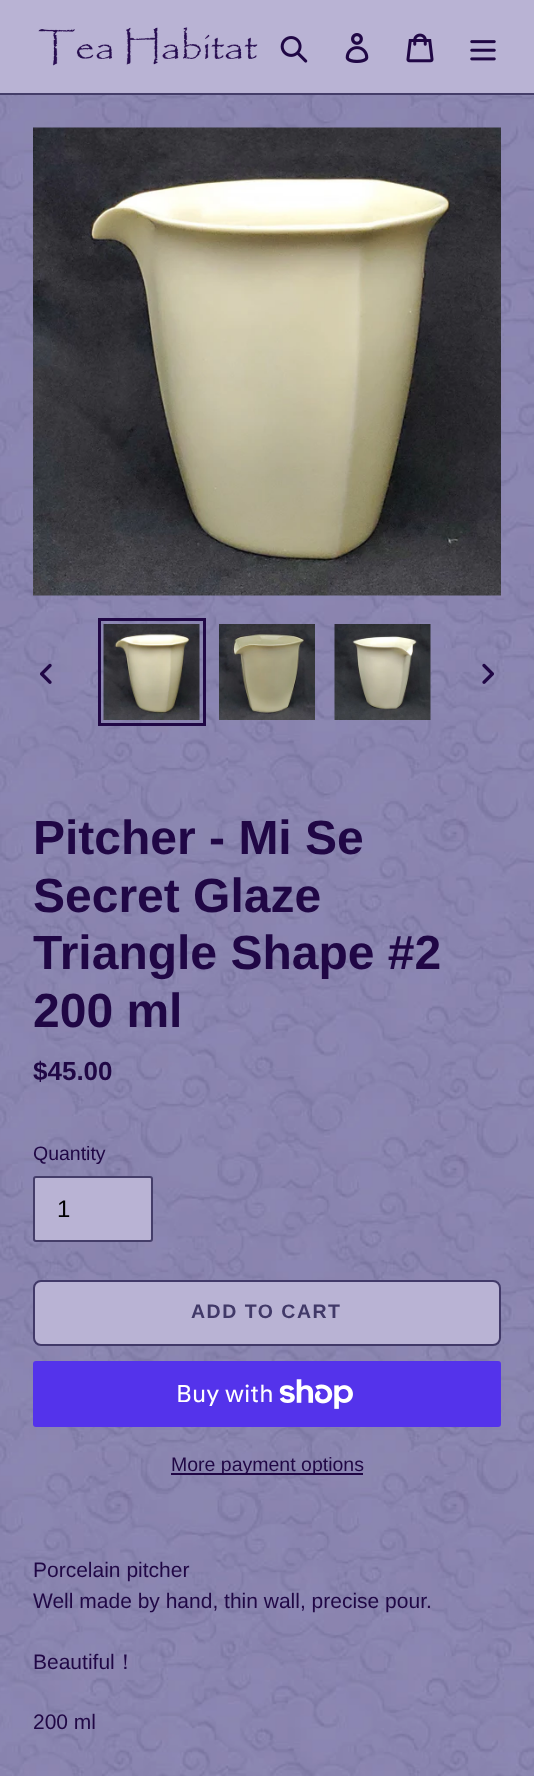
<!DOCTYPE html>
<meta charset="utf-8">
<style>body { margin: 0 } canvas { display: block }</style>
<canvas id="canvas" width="534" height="1776"></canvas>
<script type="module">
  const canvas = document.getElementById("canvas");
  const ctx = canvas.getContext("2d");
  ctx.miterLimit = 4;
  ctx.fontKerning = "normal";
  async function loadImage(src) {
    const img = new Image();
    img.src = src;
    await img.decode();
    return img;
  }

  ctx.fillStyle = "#ffffff";
  ctx.fillRect(0, 0, 534, 1776);
  ctx.drawImage(await loadImage("img1.png"), 0, 95, 534, 1681);
  ctx.fillStyle = "#b9b3d4";
  ctx.fillRect(0, 0, 534, 93);
  ctx.fillStyle = "#443d69";
  ctx.fillRect(0, 93, 534, 2);
  ctx.drawImage(await loadImage("img2.png"), 38, 27, 220, 39);
  ctx.drawImage(await loadImage("img3.png"), 280, 36, 28, 27);
  ctx.drawImage(await loadImage("img4.png"), 345, 33, 24, 30);
  ctx.drawImage(await loadImage("img5.png"), 406, 33, 28, 30);
  ctx.drawImage(await loadImage("img6.png"), 470, 40, 26, 21);
  ctx.drawImage(await loadImage("img7.png"), 33, 127, 468, 469);
  ctx.drawImage(await loadImage("img8.png"), 40, 663, 12, 21);
  ctx.strokeStyle = "#200745";
  ctx.lineWidth = 3;
  ctx.strokeRect(99.5, 619.5, 105, 105);
  ctx.drawImage(await loadImage("img9.png"), 103, 624, 97, 96);
  ctx.drawImage(await loadImage("img10.png"), 219, 624, 96, 96);
  ctx.drawImage(await loadImage("img11.png"), 334, 624, 97, 96);
  ctx.drawImage(await loadImage("img12.png"), 482, 663, 12, 21);
  ctx.font = "bold 48px Liberation Sans";
  ctx.fillStyle = "#200745";
  ctx.fillText("Pitcher - Mi Se", 33, 854);
  ctx.fillText("Secret Glaze", 33, 912);
  ctx.fillText("Triangle Shape #2", 33, 969);
  ctx.fillText("200 ml", 33, 1027);
  ctx.font = "bold 26px Liberation Sans";
  ctx.fillText("$45.00", 33, 1080);
  ctx.font = "19.5px Liberation Sans";
  ctx.fillText("Quantity", 33, 1160);
  ctx.fillStyle = "#b9b3d4";
  ctx.beginPath();
  ctx.roundRect(34, 1177, 118, 64, 2);
  ctx.fill();
  ctx.strokeStyle = "#443d69";
  ctx.lineWidth = 2;
  ctx.stroke();
  ctx.font = "24px Liberation Sans";
  ctx.fillStyle = "#000000";
  ctx.fillText("1", 57, 1217);
  ctx.fillStyle = "#b9b3d4";
  ctx.beginPath();
  ctx.roundRect(34, 1281, 466, 64, 7);
  ctx.fill();
  ctx.strokeStyle = "#413968";
  ctx.stroke();
  ctx.letterSpacing = "1.5px";
  ctx.font = "bold 19.5px Liberation Sans";
  ctx.fillStyle = "#413968";
  ctx.fillText("ADD TO CART", 191, 1318);
  ctx.fillStyle = "#5433eb";
  ctx.beginPath();
  ctx.roundRect(33, 1361, 468, 66, 3);
  ctx.fill();
  ctx.letterSpacing = "0px";
  ctx.font = "24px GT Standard";
  ctx.fillStyle = "#ffffff";
  ctx.fillText("Buy with", 176, 1402);
  ctx.drawImage(await loadImage("img13.png"), 279, 1379, 74, 30);
  ctx.fillStyle = "#200745";
  ctx.fillRect(171, 1473, 192, 2);
  ctx.font = "19.5px Liberation Sans";
  ctx.fillText("More payment options", 171, 1471);
  ctx.font = "21px Liberation Sans";
  ctx.fillText("Porcelain pitcher", 33, 1577);
  ctx.fillText("Well made by hand, thin wall, precise pour.", 33, 1608);
  ctx.fillText("Beautiful", 33, 1669);
  ctx.font = "500 21px WenQuanYi Zen Hei";
  ctx.fillText("！", 115, 1669);
  ctx.font = "21px Liberation Sans";
  ctx.fillText("200 ml", 33, 1729);
</script>
